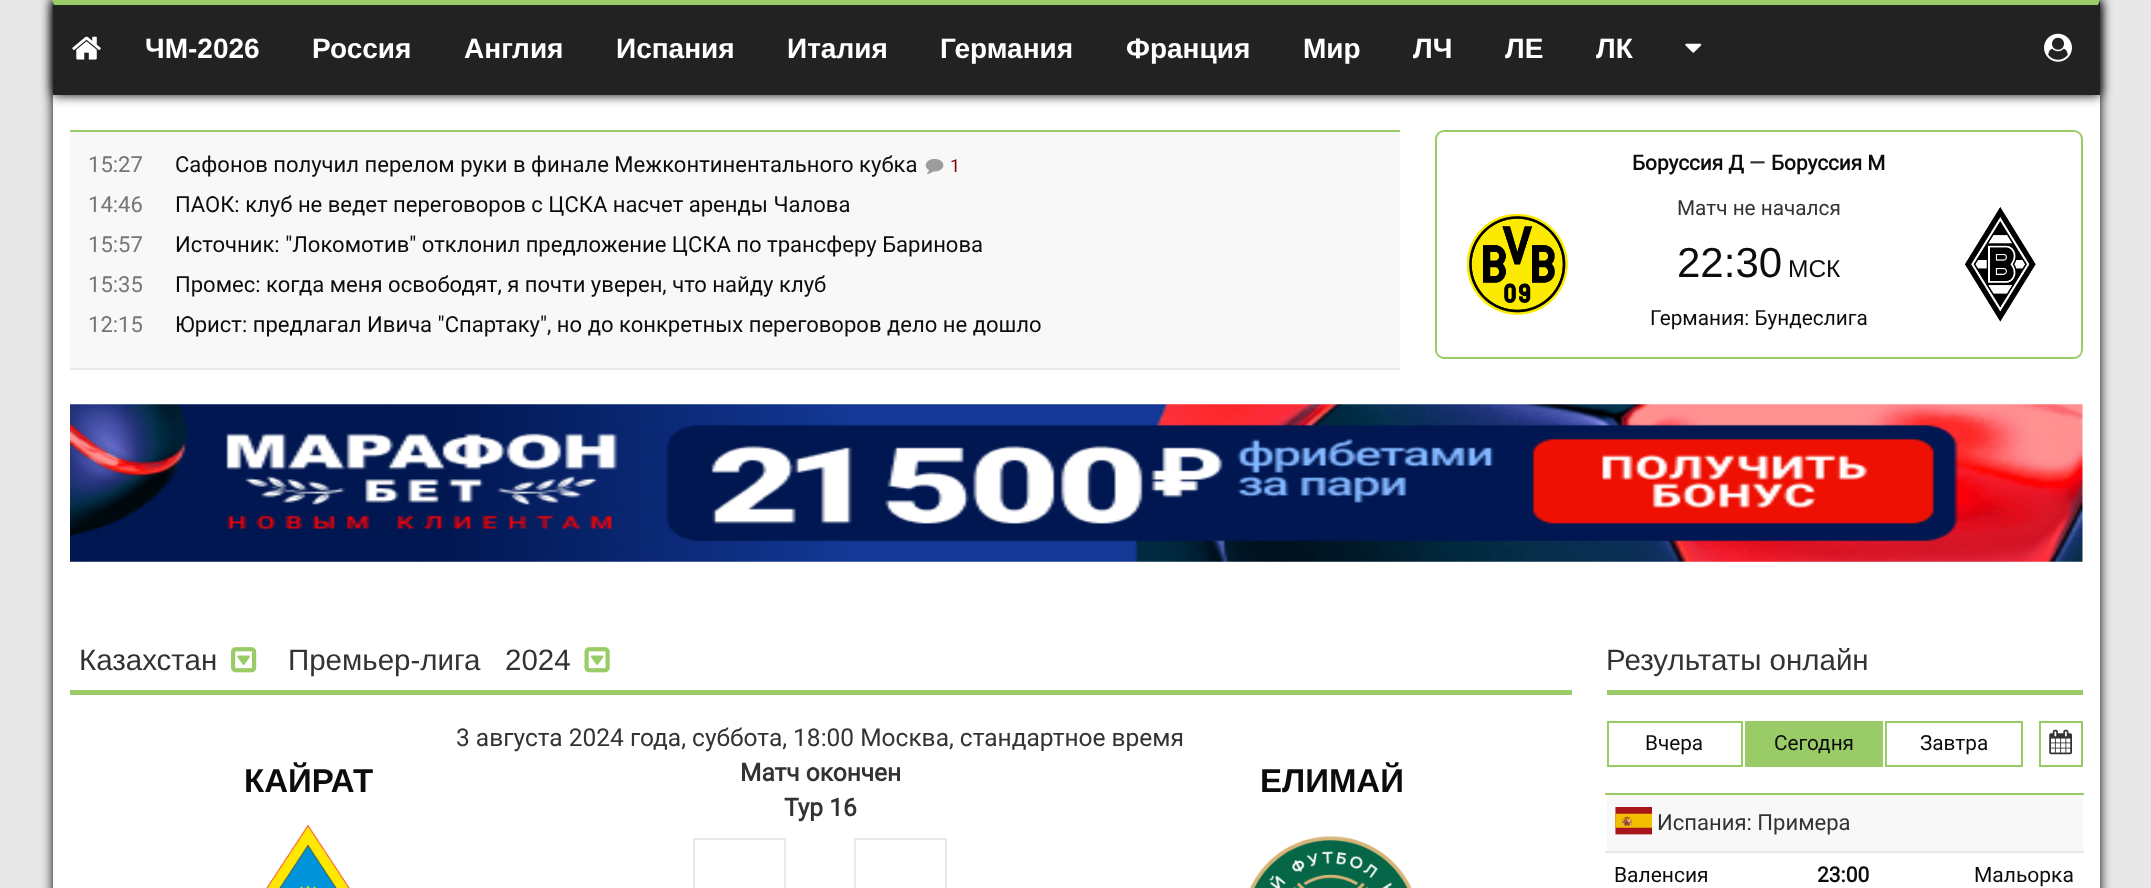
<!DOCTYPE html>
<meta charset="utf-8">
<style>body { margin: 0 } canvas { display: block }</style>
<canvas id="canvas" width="2151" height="888"></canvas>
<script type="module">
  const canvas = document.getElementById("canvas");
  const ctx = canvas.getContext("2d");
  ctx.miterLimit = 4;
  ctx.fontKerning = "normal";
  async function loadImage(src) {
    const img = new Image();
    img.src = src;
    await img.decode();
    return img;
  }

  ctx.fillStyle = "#e8e8e8";
  ctx.fillRect(0, 0, 2151, 888);
  ctx.fillStyle = "#000000";
  ctx.filter = "blur(6px)";
  ctx.beginPath();
  ctx.rect(53, 0, 2047, 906);
  ctx.fill();
  ctx.filter = "none";
  ctx.fillStyle = "#ffffff";
  ctx.fillRect(53, 95, 2047, 793);
  ctx.fillStyle = "#000000";
  ctx.filter = "blur(6px)";
  ctx.beginPath();
  ctx.rect(53, 0, 2047, 95);
  ctx.fill();
  ctx.filter = "none";
  ctx.fillStyle = "#222222";
  ctx.fillRect(53, 0, 2047, 95);
  ctx.fillStyle = "#99cc66";
  ctx.beginPath();
  ctx.moveTo(52, 0);
  ctx.lineTo(2100, 0);
  ctx.lineTo(2098, 5);
  ctx.lineTo(54, 5);
  ctx.closePath();
  ctx.fill();
  ctx.drawImage(await loadImage("img1.png"), 72, 36, 29, 24);
  ctx.font = "bold 28px Liberation Sans";
  ctx.fillStyle = "#ffffff";
  ctx.fillText("ЧМ-2026", 145, 58);
  ctx.fillText("Россия", 312, 58);
  ctx.fillText("Англия", 464, 58);
  ctx.fillText("Испания", 616, 58);
  ctx.fillText("Италия", 787, 58);
  ctx.fillText("Германия", 940, 58);
  ctx.fillText("Франция", 1126, 58);
  ctx.fillText("Мир", 1303, 58);
  ctx.fillText("ЛЧ", 1413, 58);
  ctx.fillText("ЛЕ", 1505, 58);
  ctx.fillText("ЛК", 1596, 58);
  ctx.drawImage(await loadImage("img2.png"), 1685, 43, 17, 10);
  ctx.drawImage(await loadImage("img3.png"), 2044, 33, 28, 29);
  ctx.fillStyle = "#f8f8f8";
  ctx.fillRect(70, 132, 1330, 236);
  ctx.fillStyle = "#99cc66";
  ctx.fillRect(70, 130, 1330, 2);
  ctx.fillStyle = "#e8e8e8";
  ctx.fillRect(70, 368, 1330, 2);
  ctx.font = "22.05px Roboto";
  ctx.fillStyle = "#767676";
  ctx.fillText("15:27", 88, 172);
  ctx.fillStyle = "#0c0c0c";
  ctx.fillText("Сафонов получил перелом руки в финале Межконтинентального кубка", 175, 172);
  ctx.drawImage(await loadImage("img4.png"), 925, 158, 19, 16);
  ctx.font = "18px Roboto";
  ctx.fillStyle = "#800000";
  ctx.fillText("1", 950, 172);
  ctx.font = "22.05px Roboto";
  ctx.fillStyle = "#767676";
  ctx.fillText("14:46", 88, 212);
  ctx.fillStyle = "#0c0c0c";
  ctx.fillText("ПАОК: клуб не ведет переговоров с ЦСКА насчет аренды Чалова", 175, 212);
  ctx.fillStyle = "#767676";
  ctx.fillText("15:57", 88, 252);
  ctx.fillStyle = "#0c0c0c";
  ctx.fillText("Источник: \"Локомотив\" отклонил предложение ЦСКА по трансферу Баринова", 175, 252);
  ctx.fillStyle = "#767676";
  ctx.fillText("15:35", 88, 292);
  ctx.fillStyle = "#0c0c0c";
  ctx.fillText("Промес: когда меня освободят, я почти уверен, что найду клуб", 175, 292);
  ctx.fillStyle = "#767676";
  ctx.fillText("12:15", 88, 332);
  ctx.fillStyle = "#0c0c0c";
  ctx.fillText("Юрист: предлагал Ивича \"Спартаку\", но до конкретных переговоров дело не дошло", 175, 332);
  ctx.beginPath();
  ctx.roundRect(1436, 131, 646, 227, 8);
  ctx.strokeStyle = "#99cc66";
  ctx.lineWidth = 2;
  ctx.stroke();
  ctx.font = "bold 20.75px Roboto";
  ctx.fillText("Боруссия Д", 1632, 170);
  ctx.fillStyle = "#333333";
  ctx.fillText("—", 1749, 170);
  ctx.fillStyle = "#0c0c0c";
  ctx.fillText("Боруссия М", 1771, 170);
  ctx.drawImage(await loadImage("img5.png"), 1467, 214, 101, 101);
  ctx.font = "20.75px Roboto";
  ctx.fillStyle = "#333333";
  ctx.fillText("Матч не начался", 1677, 215);
  ctx.font = "42px Liberation Sans";
  ctx.fillStyle = "#0c0c0c";
  ctx.fillText("22:30", 1677, 277);
  ctx.font = "24.5px Liberation Sans";
  ctx.fillText("МСК", 1788, 277);
  ctx.font = "20.75px Roboto";
  ctx.fillText("Германия: Бундеслига", 1650, 325);
  ctx.drawImage(await loadImage("img6.png"), 1964, 207, 72, 115);
  ctx.drawImage(await loadImage("img7.png"), 70, 404, 2013, 158);
  ctx.fillStyle = "#99cc66";
  ctx.fillRect(70, 690, 1502, 5);
  ctx.font = "29.5px Arimo";
  ctx.fillStyle = "#333333";
  ctx.fillText("Казахстан", 79, 670);
  ctx.drawImage(await loadImage("img8.png"), 231, 647, 26, 26);
  ctx.fillText("Премьер-лига", 288, 670);
  ctx.fillText("2024", 505, 670);
  ctx.drawImage(await loadImage("img9.png"), 584, 647, 26, 26);
  ctx.font = "24.5px Roboto";
  ctx.fillText("3 августа 2024 года, суббота, 18:00 Москва, стандартное время", 456, 746);
  ctx.font = "bold 33px Liberation Sans";
  ctx.fillStyle = "#0c0c0c";
  ctx.fillText("КАЙРАТ", 244, 792);
  ctx.drawImage(await loadImage("img10.png"), 266, 825, 84, 63);
  ctx.font = "bold 24.5px Roboto";
  ctx.fillStyle = "#333333";
  ctx.fillText("Матч окончен", 740, 781);
  ctx.fillText("Тур 16", 784, 816);
  ctx.strokeStyle = "#e8e8e8";
  ctx.strokeRect(694, 839, 91, 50);
  ctx.strokeRect(855, 839, 91, 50);
  ctx.font = "bold 33px Liberation Sans";
  ctx.fillStyle = "#0c0c0c";
  ctx.fillText("ЕЛИМАЙ", 1260, 792);
  ctx.drawImage(await loadImage("img11.png"), 1249, 836, 163, 52);
  ctx.fillStyle = "#99cc66";
  ctx.fillRect(1607, 690, 476, 5);
  ctx.font = "29.5px Arimo";
  ctx.fillStyle = "#333333";
  ctx.fillText("Результаты онлайн", 1606, 670);
  ctx.strokeStyle = "#99cc66";
  ctx.strokeRect(1608, 722, 134, 44);
  ctx.font = "20.75px Roboto";
  ctx.fillStyle = "#0c0c0c";
  ctx.fillText("Вчера", 1645, 750);
  ctx.fillStyle = "#99cc66";
  ctx.fillRect(1745, 721, 138, 46);
  ctx.fillStyle = "#0c0c0c";
  ctx.fillText("Сегодня", 1774, 750);
  ctx.strokeRect(1886, 722, 136, 44);
  ctx.fillText("Завтра", 1920, 750);
  ctx.strokeRect(2040, 722, 42, 44);
  ctx.drawImage(await loadImage("img12.png"), 2049, 729, 23, 26);
  ctx.fillStyle = "#f8f8f8";
  ctx.fillRect(1607, 795, 476, 56);
  ctx.fillStyle = "#99cc66";
  ctx.fillRect(1605, 793, 479, 2);
  ctx.fillStyle = "#e8e8e8";
  ctx.fillRect(1605, 851, 479, 2);
  ctx.drawImage(await loadImage("img13.png"), 1615, 807, 37, 28);
  ctx.font = "22.05px Roboto";
  ctx.fillStyle = "#333333";
  ctx.fillText("Испания: Примера", 1657, 830);
  ctx.font = "21px Roboto";
  ctx.fillStyle = "#0c0c0c";
  ctx.fillText("Валенсия", 1614, 882);
  ctx.font = "bold 21px Roboto";
  ctx.fillText("23:00", 1817, 882);
  ctx.font = "21px Roboto";
  ctx.fillText("Мальорка", 1974, 882);
</script>
